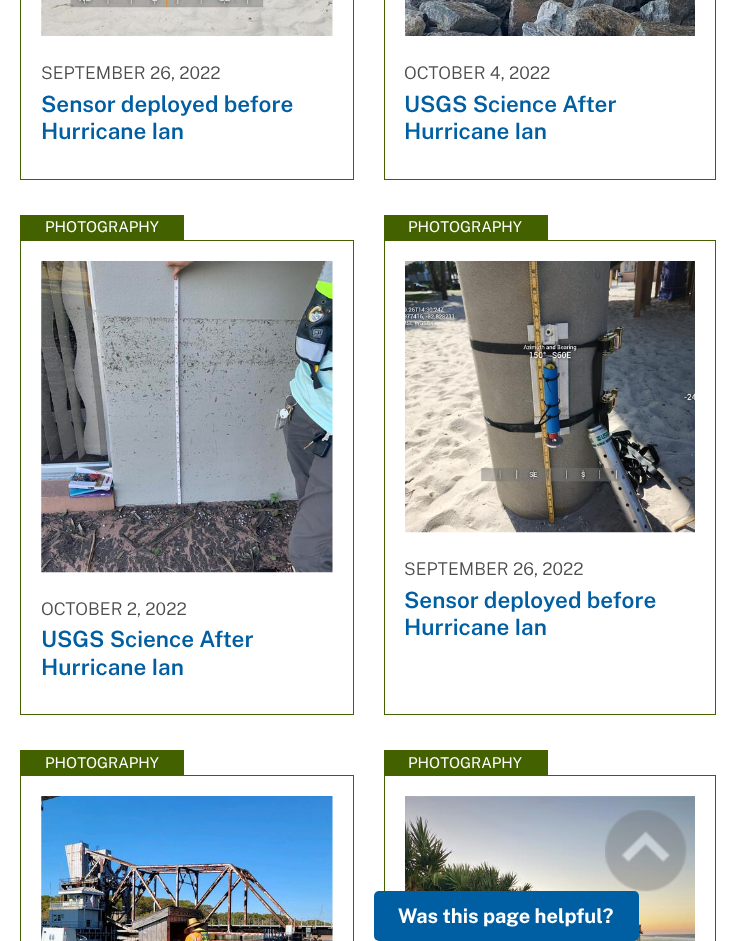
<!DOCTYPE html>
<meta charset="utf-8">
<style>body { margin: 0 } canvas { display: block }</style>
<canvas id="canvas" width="736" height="941"></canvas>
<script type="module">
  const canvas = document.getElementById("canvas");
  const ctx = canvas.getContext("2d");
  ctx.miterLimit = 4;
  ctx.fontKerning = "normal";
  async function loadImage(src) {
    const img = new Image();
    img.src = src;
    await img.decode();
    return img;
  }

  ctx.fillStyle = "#ffffff";
  ctx.fillRect(0, 0, 736, 941);
  ctx.strokeStyle = "#446100";
  ctx.strokeRect(20.5, -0.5, 333, 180);
  ctx.drawImage(await loadImage("img1.png"), 41, 0, 292, 36);
  ctx.font = "300 17.5px Public Sans";
  ctx.fillStyle = "#4d4d4d";
  ctx.fillText("SEPTEMBER 26, 2022", 41, 79);
  ctx.font = "600 22.5px Public Sans";
  ctx.fillStyle = "#005ea2";
  ctx.fillText("Sensor deployed before", 41, 112);
  ctx.fillText("Hurricane Ian", 41, 139);
  ctx.strokeRect(384.5, -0.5, 331, 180);
  ctx.drawImage(await loadImage("img2.png"), 405, 0, 290, 36);
  ctx.font = "300 17.5px Public Sans";
  ctx.fillStyle = "#4d4d4d";
  ctx.fillText("OCTOBER 4, 2022", 404, 79);
  ctx.font = "600 22.5px Public Sans";
  ctx.fillStyle = "#005ea2";
  ctx.fillText("USGS Science After", 404, 112);
  ctx.fillText("Hurricane Ian", 404, 139);
  ctx.fillStyle = "#446100";
  ctx.fillRect(20, 215, 164, 25);
  ctx.font = "15px Public Sans";
  ctx.fillStyle = "#ffffff";
  ctx.fillText("PHOTOGRAPHY", 45, 232);
  ctx.strokeRect(20.5, 240.5, 333, 474);
  ctx.drawImage(await loadImage("img3.png"), 41, 261, 292, 312);
  ctx.font = "300 17.5px Public Sans";
  ctx.fillStyle = "#4d4d4d";
  ctx.fillText("OCTOBER 2, 2022", 41, 615);
  ctx.font = "600 22.5px Public Sans";
  ctx.fillStyle = "#005ea2";
  ctx.fillText("USGS Science After", 41, 647);
  ctx.fillText("Hurricane Ian", 41, 675);
  ctx.fillStyle = "#446100";
  ctx.fillRect(384, 215, 164, 25);
  ctx.font = "15px Public Sans";
  ctx.fillStyle = "#ffffff";
  ctx.fillText("PHOTOGRAPHY", 408, 232);
  ctx.strokeRect(384.5, 240.5, 331, 474);
  ctx.drawImage(await loadImage("img4.png"), 405, 261, 290, 272);
  ctx.font = "300 17.5px Public Sans";
  ctx.fillStyle = "#4d4d4d";
  ctx.fillText("SEPTEMBER 26, 2022", 404, 575);
  ctx.font = "600 22.5px Public Sans";
  ctx.fillStyle = "#005ea2";
  ctx.fillText("Sensor deployed before", 404, 608);
  ctx.fillText("Hurricane Ian", 404, 635);
  ctx.fillStyle = "#446100";
  ctx.fillRect(20, 750, 164, 25);
  ctx.font = "15px Public Sans";
  ctx.fillStyle = "#ffffff";
  ctx.fillText("PHOTOGRAPHY", 45, 768);
  ctx.strokeRect(20.5, 775.5, 333, 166);
  ctx.drawImage(await loadImage("img5.png"), 41, 796, 292, 145);
  ctx.fillStyle = "#446100";
  ctx.fillRect(384, 750, 164, 25);
  ctx.fillStyle = "#ffffff";
  ctx.fillText("PHOTOGRAPHY", 408, 768);
  ctx.strokeRect(384.5, 775.5, 331, 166);
  ctx.drawImage(await loadImage("img6.png"), 405, 796, 290, 145);
  ctx.drawImage(await loadImage("img7.png"), 605, 810, 82, 82);
  ctx.fillStyle = "#005ea2";
  ctx.beginPath();
  ctx.roundRect(374, 891, 265, 50, 5);
  ctx.fill();
  ctx.font = "bold 20px Public Sans";
  ctx.fillStyle = "#ffffff";
  ctx.fillText("Was this page helpful?", 398, 923);
</script>
